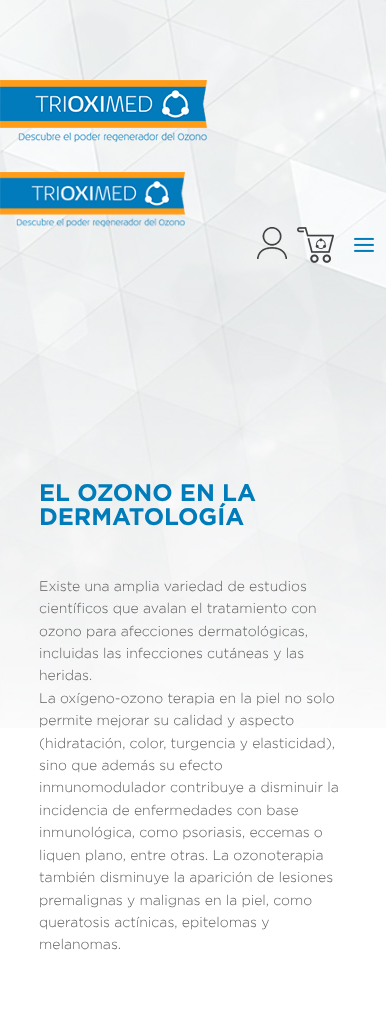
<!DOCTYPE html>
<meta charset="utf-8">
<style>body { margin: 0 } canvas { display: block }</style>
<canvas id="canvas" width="386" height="1014"></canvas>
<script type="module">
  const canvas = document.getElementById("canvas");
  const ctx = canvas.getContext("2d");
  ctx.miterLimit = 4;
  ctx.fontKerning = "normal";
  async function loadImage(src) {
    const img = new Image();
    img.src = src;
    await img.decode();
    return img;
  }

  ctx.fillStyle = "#ffffff";
  ctx.fillRect(0, 0, 386, 1014);
  ctx.drawImage(await loadImage("img1.png"), 0, 0, 386, 728);
  ctx.drawImage(await loadImage("img2.png"), 0, 80, 207, 62);
  ctx.drawImage(await loadImage("img3.png"), 0, 172, 185, 55);
  ctx.drawImage(await loadImage("img4.png"), 257, 227, 30, 32);
  ctx.drawImage(await loadImage("img5.png"), 297, 227, 37, 36);
  ctx.drawImage(await loadImage("img6.png"), 354, 237, 20, 15);
  ctx.font = "bold 24px Gotham";
  ctx.fillStyle = "#017cba";
  ctx.fillText("EL OZONO EN LA", 39, 501);
  ctx.fillText("DERMATOLOGÍA", 39, 525);
  ctx.font = "300 14px Gotham";
  ctx.fillStyle = "#606060";
  ctx.fillText("Existe una amplia variedad de estudios", 39, 591);
  ctx.fillText("científicos que avalan el tratamiento con", 39, 613);
  ctx.fillText("ozono para afecciones dermatológicas,", 39, 636);
  ctx.fillText("incluidas las infecciones cutáneas y las", 39, 658);
  ctx.fillText("heridas.", 39, 680);
  ctx.fillText("La oxígeno-ozono terapia en la piel no solo", 39, 703);
  ctx.fillText("permite mejorar su calidad y aspecto", 39, 725);
  ctx.fillText("(hidratación, color, turgencia y elasticidad),", 39, 748);
  ctx.fillText("sino que además su efecto", 39, 770);
  ctx.fillText("inmunomodulador contribuye a disminuir la", 39, 792);
  ctx.fillText("incidencia de enfermedades con base", 39, 815);
  ctx.fillText("inmunológica, como psoriasis, eccemas o", 39, 837);
  ctx.fillText("liquen plano, entre otras. La ozonoterapia", 39, 860);
  ctx.fillText("también disminuye la aparición de lesiones", 39, 882);
  ctx.fillText("premalignas y malignas en la piel, como", 39, 905);
  ctx.fillText("queratosis actínicas, epitelomas y", 39, 927);
  ctx.fillText("melanomas.", 39, 949);
</script>
